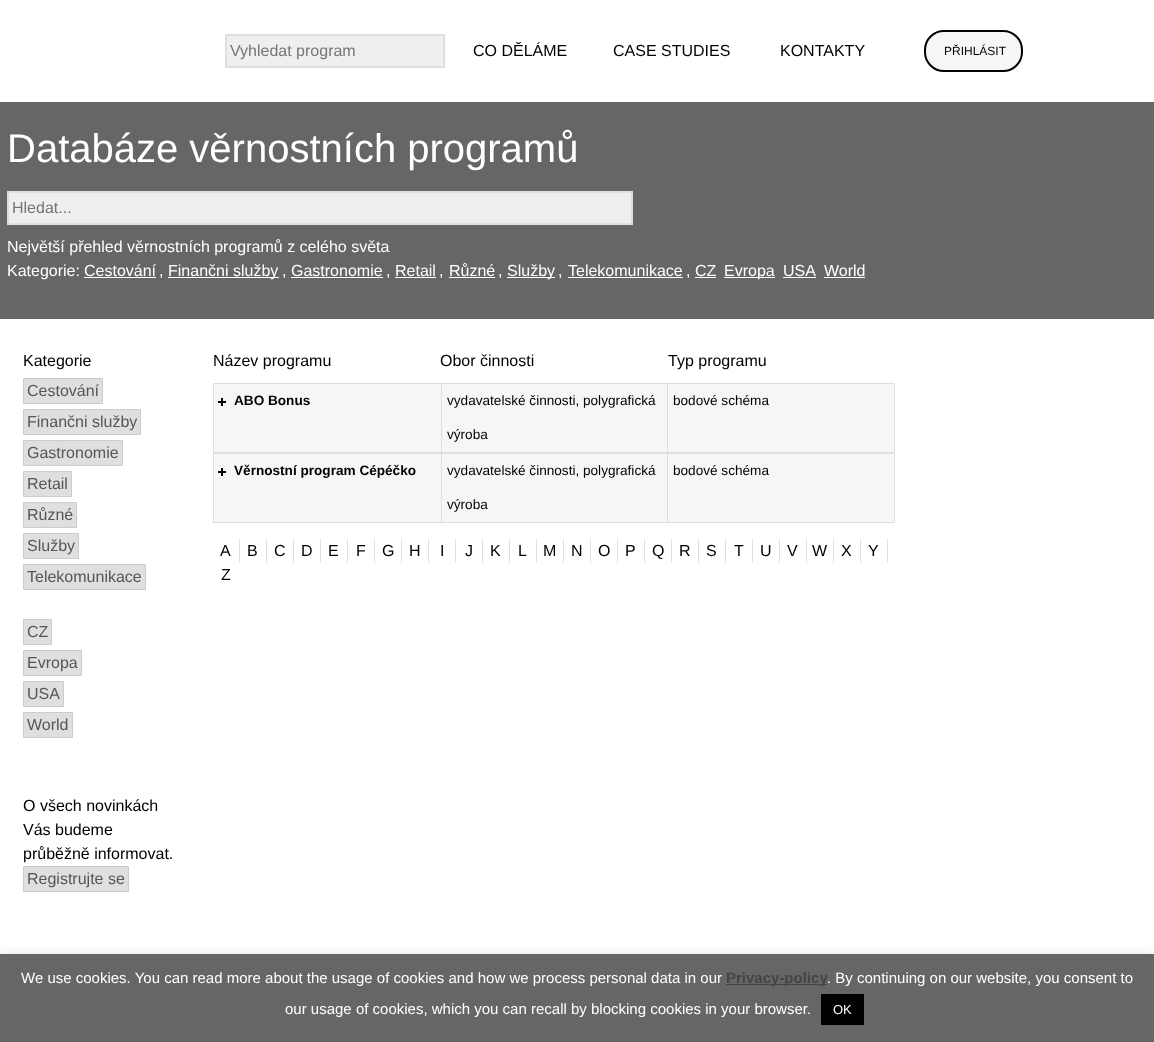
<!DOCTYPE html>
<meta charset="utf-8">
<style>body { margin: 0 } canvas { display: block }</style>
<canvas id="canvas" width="1154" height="1042"></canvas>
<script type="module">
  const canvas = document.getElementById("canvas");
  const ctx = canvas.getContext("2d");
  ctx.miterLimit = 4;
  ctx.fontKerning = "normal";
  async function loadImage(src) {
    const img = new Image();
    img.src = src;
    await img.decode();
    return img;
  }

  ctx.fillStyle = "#ffffff";
  ctx.fillRect(0, 0, 1154, 1042);
  ctx.fillStyle = "#efefef";
  ctx.beginPath();
  ctx.rect(226, 35, 218, 32);
  ctx.fill();
  ctx.strokeStyle = "#dfdfdf";
  ctx.lineWidth = 2;
  ctx.stroke();
  ctx.font = "16px Liberation Sans";
  ctx.fillStyle = "#757575";
  ctx.fillText("Vyhledat program", 230, 56);
  ctx.fillStyle = "#000000";
  ctx.fillText("CO DĚLÁME", 473, 56);
  ctx.fillText("CASE STUDIES", 613, 56);
  ctx.fillText("KONTAKTY", 780, 56);
  ctx.fillStyle = "#f6f6f6";
  ctx.beginPath();
  ctx.roundRect(925, 31, 97, 40, 19);
  ctx.fill();
  ctx.strokeStyle = "#000000";
  ctx.stroke();
  ctx.font = "12px Liberation Sans";
  ctx.fillStyle = "#000000";
  ctx.fillText("PŘIHLÁSIT", 944, 55);
  ctx.fillStyle = "#666666";
  ctx.fillRect(0, 102, 1154, 217);
  ctx.font = "40px Liberation Sans";
  ctx.fillStyle = "#ffffff";
  ctx.fillText("Databáze věrnostních programů", 7, 162);
  ctx.fillStyle = "#efefef";
  ctx.beginPath();
  ctx.rect(8, 192, 624, 32);
  ctx.fill();
  ctx.strokeStyle = "#dfdfdf";
  ctx.stroke();
  ctx.font = "16px Liberation Sans";
  ctx.fillStyle = "#757575";
  ctx.fillText("Hledat...", 12, 213);
  ctx.fillStyle = "#ffffff";
  ctx.fillText("Největší přehled věrnostních programů z celého světa", 7, 252);
  ctx.fillText("Kategorie:", 7, 276);
  ctx.fillText("Cestování", 84, 276);
  ctx.fillRect(84, 277, 72, 1);
  ctx.fillText(",", 159, 276);
  ctx.fillRect(168, 277, 111, 1);
  ctx.fillText("Finančni služby", 168, 276);
  ctx.fillText(",", 282, 276);
  ctx.fillText("Gastronomie", 291, 276);
  ctx.fillRect(291, 277, 92, 1);
  ctx.fillText(",", 386, 276);
  ctx.fillText("Retail", 395, 276);
  ctx.fillRect(395, 277, 41, 1);
  ctx.fillText(",", 439, 276);
  ctx.fillText("Různé", 449, 276);
  ctx.fillRect(449, 277, 46, 1);
  ctx.fillText(",", 498, 276);
  ctx.fillRect(507, 277, 48, 1);
  ctx.fillText("Služby", 507, 276);
  ctx.fillText(",", 558, 276);
  ctx.fillText("Telekomunikace", 568, 276);
  ctx.fillRect(568, 277, 115, 1);
  ctx.fillText(",", 686, 276);
  ctx.fillText("CZ", 695, 276);
  ctx.fillRect(695, 277, 21, 1);
  ctx.fillRect(724, 277, 51, 1);
  ctx.fillText("Evropa", 724, 276);
  ctx.fillText("USA", 783, 276);
  ctx.fillRect(783, 277, 33, 1);
  ctx.fillText("World", 824, 276);
  ctx.fillRect(824, 277, 41, 1);
  ctx.fillStyle = "#000000";
  ctx.fillText("Kategorie", 23, 366);
  ctx.fillStyle = "#dfdfdf";
  ctx.beginPath();
  ctx.rect(23.5, 378.5, 79, 25);
  ctx.fill();
  ctx.strokeStyle = "#cccccc";
  ctx.lineWidth = 1;
  ctx.stroke();
  ctx.fillStyle = "#565656";
  ctx.fillText("Cestování", 27, 396);
  ctx.fillStyle = "#dfdfdf";
  ctx.beginPath();
  ctx.rect(23.5, 409.5, 117, 25);
  ctx.fill();
  ctx.stroke();
  ctx.fillStyle = "#565656";
  ctx.fillText("Finančni služby", 27, 427);
  ctx.fillStyle = "#dfdfdf";
  ctx.beginPath();
  ctx.rect(23.5, 440.5, 99, 25);
  ctx.fill();
  ctx.stroke();
  ctx.fillStyle = "#565656";
  ctx.fillText("Gastronomie", 27, 458);
  ctx.fillStyle = "#dfdfdf";
  ctx.beginPath();
  ctx.rect(23.5, 471.5, 48, 25);
  ctx.fill();
  ctx.stroke();
  ctx.fillStyle = "#565656";
  ctx.fillText("Retail", 27, 489);
  ctx.fillStyle = "#dfdfdf";
  ctx.beginPath();
  ctx.rect(23.5, 502.5, 53, 25);
  ctx.fill();
  ctx.stroke();
  ctx.fillStyle = "#565656";
  ctx.fillText("Různé", 27, 520);
  ctx.fillStyle = "#dfdfdf";
  ctx.beginPath();
  ctx.rect(23.5, 533.5, 55, 25);
  ctx.fill();
  ctx.stroke();
  ctx.fillStyle = "#565656";
  ctx.fillText("Služby", 27, 551);
  ctx.fillStyle = "#dfdfdf";
  ctx.beginPath();
  ctx.rect(23.5, 564.5, 122, 25);
  ctx.fill();
  ctx.stroke();
  ctx.fillStyle = "#565656";
  ctx.fillText("Telekomunikace", 27, 582);
  ctx.fillStyle = "#dfdfdf";
  ctx.beginPath();
  ctx.rect(23.5, 619.5, 28, 25);
  ctx.fill();
  ctx.stroke();
  ctx.fillStyle = "#565656";
  ctx.fillText("CZ", 27, 637);
  ctx.fillStyle = "#dfdfdf";
  ctx.beginPath();
  ctx.rect(23.5, 650.5, 58, 25);
  ctx.fill();
  ctx.stroke();
  ctx.fillStyle = "#565656";
  ctx.fillText("Evropa", 27, 668);
  ctx.fillStyle = "#dfdfdf";
  ctx.beginPath();
  ctx.rect(23.5, 681.5, 40, 25);
  ctx.fill();
  ctx.stroke();
  ctx.fillStyle = "#565656";
  ctx.fillText("USA", 27, 699);
  ctx.fillStyle = "#dfdfdf";
  ctx.beginPath();
  ctx.rect(23.5, 712.5, 49, 25);
  ctx.fill();
  ctx.stroke();
  ctx.fillStyle = "#565656";
  ctx.fillText("World", 27, 730);
  ctx.fillStyle = "#000000";
  ctx.fillText("O všech novinkách", 23, 811);
  ctx.fillText("Vás budeme", 23, 835);
  ctx.fillText("průběžně informovat.", 23, 859);
  ctx.fillStyle = "#dfdfdf";
  ctx.beginPath();
  ctx.rect(23.5, 866.5, 105, 25);
  ctx.fill();
  ctx.stroke();
  ctx.fillStyle = "#565656";
  ctx.fillText("Registrujte se", 27, 884);
  ctx.fillStyle = "#000000";
  ctx.fillText("Název programu", 213, 366);
  ctx.fillText("Obor činnosti", 440, 366);
  ctx.fillText("Typ programu", 668, 366);
  ctx.fillStyle = "#f6f6f6";
  ctx.beginPath();
  ctx.rect(213.5, 383.5, 681, 69);
  ctx.fill();
  ctx.strokeStyle = "#dedede";
  ctx.stroke();
  ctx.drawImage(await loadImage("img1.png"), 218, 398, 8, 8);
  ctx.font = "bold 13.6px Liberation Sans";
  ctx.fillStyle = "#000000";
  ctx.fillText("ABO Bonus", 234, 405);
  ctx.fillStyle = "#dedede";
  ctx.fillRect(441, 384, 1, 68);
  ctx.font = "13.6px Liberation Sans";
  ctx.fillStyle = "#000000";
  ctx.fillText("vydavatelské činnosti, polygraﬁcká", 447, 405);
  ctx.fillText("výroba", 447, 439);
  ctx.fillStyle = "#dedede";
  ctx.fillRect(667, 384, 1, 68);
  ctx.fillStyle = "#000000";
  ctx.fillText("bodové schéma", 673, 405);
  ctx.fillStyle = "#f6f6f6";
  ctx.beginPath();
  ctx.rect(213.5, 453.5, 681, 69);
  ctx.fill();
  ctx.stroke();
  ctx.drawImage(await loadImage("img1.png"), 218, 468, 8, 8);
  ctx.font = "bold 13.6px Liberation Sans";
  ctx.fillStyle = "#000000";
  ctx.fillText("Věrnostní program Cépéčko", 234, 475);
  ctx.fillStyle = "#dedede";
  ctx.fillRect(441, 454, 1, 68);
  ctx.font = "13.6px Liberation Sans";
  ctx.fillStyle = "#000000";
  ctx.fillText("vydavatelské činnosti, polygraﬁcká", 447, 475);
  ctx.fillText("výroba", 447, 509);
  ctx.fillStyle = "#dedede";
  ctx.fillRect(667, 454, 1, 68);
  ctx.fillStyle = "#000000";
  ctx.fillText("bodové schéma", 673, 475);
  ctx.fillStyle = "#dfdfdf";
  ctx.fillRect(239, 539, 1, 24);
  ctx.font = "16px Liberation Sans";
  ctx.fillStyle = "#000000";
  ctx.fillText("A", 220, 556);
  ctx.fillStyle = "#dfdfdf";
  ctx.fillRect(266, 539, 1, 24);
  ctx.fillStyle = "#000000";
  ctx.fillText("B", 247, 556);
  ctx.fillStyle = "#dfdfdf";
  ctx.fillRect(293, 539, 1, 24);
  ctx.fillStyle = "#000000";
  ctx.fillText("C", 274, 556);
  ctx.fillStyle = "#dfdfdf";
  ctx.fillRect(320, 539, 1, 24);
  ctx.fillStyle = "#000000";
  ctx.fillText("D", 301, 556);
  ctx.fillStyle = "#dfdfdf";
  ctx.fillRect(347, 539, 1, 24);
  ctx.fillStyle = "#000000";
  ctx.fillText("E", 328, 556);
  ctx.fillStyle = "#dfdfdf";
  ctx.fillRect(374, 539, 1, 24);
  ctx.fillStyle = "#000000";
  ctx.fillText("F", 356, 556);
  ctx.fillStyle = "#dfdfdf";
  ctx.fillRect(401, 539, 1, 24);
  ctx.fillStyle = "#000000";
  ctx.fillText("G", 382, 556);
  ctx.fillStyle = "#dfdfdf";
  ctx.fillRect(428, 539, 1, 24);
  ctx.fillStyle = "#000000";
  ctx.fillText("H", 409, 556);
  ctx.fillStyle = "#dfdfdf";
  ctx.fillRect(455, 539, 1, 24);
  ctx.fillStyle = "#000000";
  ctx.fillText("I", 440, 556);
  ctx.fillStyle = "#dfdfdf";
  ctx.fillRect(482, 539, 1, 24);
  ctx.fillStyle = "#000000";
  ctx.fillText("J", 465, 556);
  ctx.fillStyle = "#dfdfdf";
  ctx.fillRect(509, 539, 1, 24);
  ctx.fillStyle = "#000000";
  ctx.fillText("K", 490, 556);
  ctx.fillStyle = "#dfdfdf";
  ctx.fillRect(536, 539, 1, 24);
  ctx.fillStyle = "#000000";
  ctx.fillText("L", 518, 556);
  ctx.fillStyle = "#dfdfdf";
  ctx.fillRect(563, 539, 1, 24);
  ctx.fillStyle = "#000000";
  ctx.fillText("M", 543, 556);
  ctx.fillStyle = "#dfdfdf";
  ctx.fillRect(590, 539, 1, 24);
  ctx.fillStyle = "#000000";
  ctx.fillText("N", 571, 556);
  ctx.fillStyle = "#dfdfdf";
  ctx.fillRect(617, 539, 1, 24);
  ctx.fillStyle = "#000000";
  ctx.fillText("O", 598, 556);
  ctx.fillStyle = "#dfdfdf";
  ctx.fillRect(644, 539, 1, 24);
  ctx.fillStyle = "#000000";
  ctx.fillText("P", 625, 556);
  ctx.fillStyle = "#dfdfdf";
  ctx.fillRect(671, 539, 1, 24);
  ctx.fillStyle = "#000000";
  ctx.fillText("Q", 652, 556);
  ctx.fillStyle = "#dfdfdf";
  ctx.fillRect(698, 539, 1, 24);
  ctx.fillStyle = "#000000";
  ctx.fillText("R", 679, 556);
  ctx.fillStyle = "#dfdfdf";
  ctx.fillRect(725, 539, 1, 24);
  ctx.fillStyle = "#000000";
  ctx.fillText("S", 706, 556);
  ctx.fillStyle = "#dfdfdf";
  ctx.fillRect(752, 539, 1, 24);
  ctx.fillStyle = "#000000";
  ctx.fillText("T", 734, 556);
  ctx.fillStyle = "#dfdfdf";
  ctx.fillRect(779, 539, 1, 24);
  ctx.fillStyle = "#000000";
  ctx.fillText("U", 760, 556);
  ctx.fillStyle = "#dfdfdf";
  ctx.fillRect(806, 539, 1, 24);
  ctx.fillStyle = "#000000";
  ctx.fillText("V", 787, 556);
  ctx.fillStyle = "#dfdfdf";
  ctx.fillRect(833, 539, 1, 24);
  ctx.fillStyle = "#000000";
  ctx.fillText("W", 812, 556);
  ctx.fillStyle = "#dfdfdf";
  ctx.fillRect(860, 539, 1, 24);
  ctx.fillStyle = "#000000";
  ctx.fillText("X", 841, 556);
  ctx.fillStyle = "#dfdfdf";
  ctx.fillRect(887, 539, 1, 24);
  ctx.fillStyle = "#000000";
  ctx.fillText("Y", 868, 556);
  ctx.fillText("Z", 221, 580);
  ctx.fillStyle = "rgba(172, 171, 171, 0.3)";
  ctx.filter = "blur(5px)";
  ctx.beginPath();
  ctx.rect(0, 953, 1154, 88);
  ctx.fill();
  ctx.filter = "none";
  ctx.fillStyle = "#666666";
  ctx.fillRect(0, 954, 1154, 88);
  ctx.font = "15px Liberation Sans";
  ctx.fillStyle = "#ffffff";
  ctx.fillText("We use cookies. You can read more about the usage of cookies and how we process personal data in our", 21, 983);
  ctx.fillStyle = "#444444";
  ctx.fillRect(726, 984, 101, 1);
  ctx.font = "bold 15px Liberation Sans";
  ctx.fillText("Privacy-policy", 726, 983);
  ctx.font = "15px Liberation Sans";
  ctx.fillStyle = "#ffffff";
  ctx.fillText(". By continuing on our website, you consent to", 827, 983);
  ctx.fillText("our usage of cookies, which you can recall by blocking cookies in your browser.", 285, 1014);
  ctx.fillStyle = "#000000";
  ctx.fillRect(821, 994, 43, 31);
  ctx.font = "13px Liberation Sans";
  ctx.fillStyle = "#ffffff";
  ctx.fillText("OK", 833, 1014);
</script>
